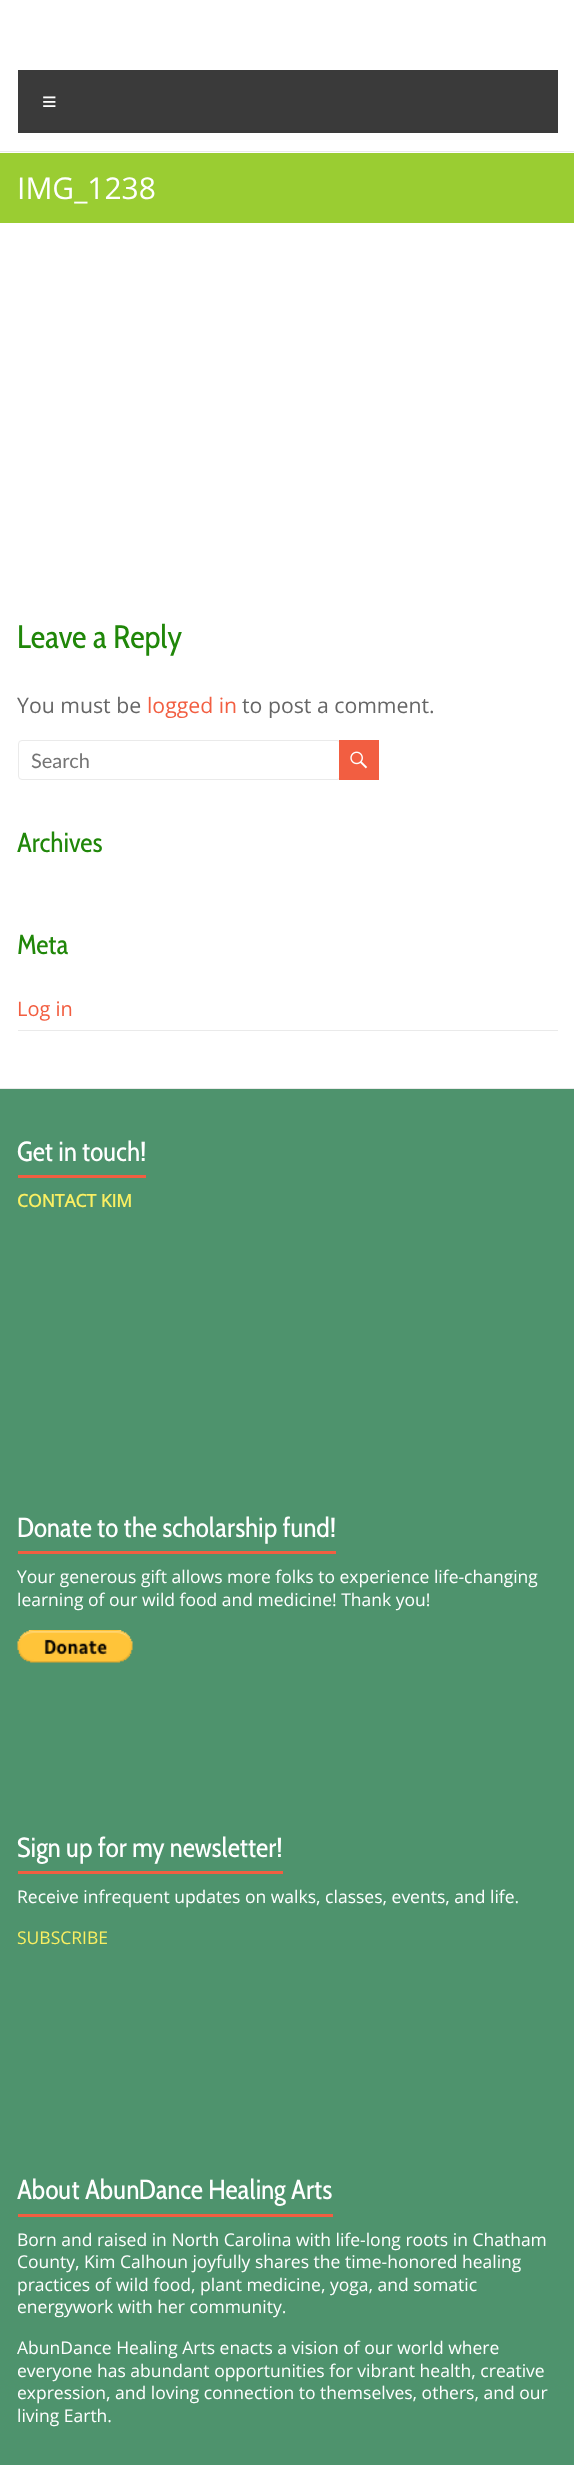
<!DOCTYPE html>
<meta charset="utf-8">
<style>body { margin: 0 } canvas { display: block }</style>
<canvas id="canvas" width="574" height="2465"></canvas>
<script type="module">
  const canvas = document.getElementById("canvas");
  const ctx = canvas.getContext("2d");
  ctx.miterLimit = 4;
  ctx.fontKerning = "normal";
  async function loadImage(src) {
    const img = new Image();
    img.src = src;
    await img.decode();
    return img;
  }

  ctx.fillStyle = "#ffffff";
  ctx.fillRect(0, 0, 574, 2465);
  ctx.fillStyle = "#eaeaea";
  ctx.fillRect(0, 151, 574, 1);
  ctx.fillStyle = "#3a3a3a";
  ctx.fillRect(18, 70, 540, 63);
  ctx.font = "25px Liberation Sans";
  ctx.fillStyle = "#ffffff";
  ctx.fillText("≡", 42, 110);
  ctx.fillStyle = "#9acd32";
  ctx.fillRect(0, 153, 574, 70);
  ctx.font = "30px Open Sans";
  ctx.fillStyle = "#ffffff";
  ctx.fillText("IMG_1238", 17, 199);
  ctx.font = "32.5px Cabin Condensed";
  ctx.fillStyle = "#208709";
  ctx.fillText("Leave a Reply", 17, 648);
  ctx.font = "21.25px Open Sans";
  ctx.fillStyle = "#666666";
  ctx.fillText("You must be", 17, 713);
  ctx.fillStyle = "#f25e41";
  ctx.fillText("logged in", 147, 713);
  ctx.fillStyle = "#666666";
  ctx.fillText("to post a comment.", 242, 713);
  ctx.beginPath();
  ctx.roundRect(18.5, 740.5, 322, 39, 3.5);
  ctx.strokeStyle = "#eaeaea";
  ctx.stroke();
  ctx.font = "20px Lato";
  ctx.fillStyle = "#757575";
  ctx.fillText("Search", 31, 768);
  ctx.fillStyle = "#f25e41";
  ctx.fillRect(339, 740, 40, 40);
  ctx.drawImage(await loadImage("img1.png"), 350, 751, 18, 18);
  ctx.font = "27.5px Cabin Condensed";
  ctx.fillStyle = "#208709";
  ctx.fillText("Archives", 17, 852);
  ctx.fillText("Meta", 17, 954);
  ctx.fillStyle = "#eaeaea";
  ctx.fillRect(18, 1030, 540, 1);
  ctx.font = "20px Open Sans";
  ctx.fillStyle = "#f25e41";
  ctx.fillText("Log in", 17, 1016);
  ctx.fillStyle = "#4e936d";
  ctx.fillRect(0, 1089, 574, 1376);
  ctx.fillStyle = "#eaeaea";
  ctx.fillRect(0, 1088, 574, 1);
  ctx.font = "27.5px Cabin Condensed";
  ctx.fillStyle = "#ffffff";
  ctx.fillText("Get in touch!", 17, 1161);
  ctx.fillStyle = "#f25e41";
  ctx.fillRect(18, 1175, 128, 3);
  ctx.font = "bold 17.5px Open Sans";
  ctx.fillStyle = "#faef62";
  ctx.fillText("CONTACT KIM", 17, 1207);
  ctx.font = "27.5px Cabin Condensed";
  ctx.fillStyle = "#ffffff";
  ctx.fillText("Donate to the scholarship fund!", 17, 1537);
  ctx.fillStyle = "#f25e41";
  ctx.fillRect(18, 1551, 318, 3);
  ctx.font = "17.5px Open Sans";
  ctx.fillStyle = "#ffffff";
  ctx.fillText("Your generous gift allows more folks to experience life-changing", 17, 1583);
  ctx.fillText("learning of our wild food and medicine! Thank you!", 17, 1606);
  ctx.drawImage(await loadImage("img2.png"), 17, 1630, 116, 33);
  ctx.font = "27.5px Cabin Condensed";
  ctx.fillText("Sign up for my newsletter!", 17, 1857);
  ctx.fillStyle = "#f25e41";
  ctx.fillRect(18, 1871, 265, 3);
  ctx.font = "17.5px Open Sans";
  ctx.fillStyle = "#ffffff";
  ctx.fillText("Receive infrequent updates on walks, classes, events, and life.", 17, 1903);
  ctx.fillStyle = "#faef62";
  ctx.fillText("SUBSCRIBE", 17, 1944);
  ctx.font = "27.5px Cabin Condensed";
  ctx.fillStyle = "#ffffff";
  ctx.fillText("About AbunDance Healing Arts", 17, 2199);
  ctx.fillStyle = "#f25e41";
  ctx.fillRect(18, 2214, 315, 3);
  ctx.font = "17.5px Open Sans";
  ctx.fillStyle = "#ffffff";
  ctx.fillText("Born and raised in North Carolina with life-long roots in Chatham", 17, 2246);
  ctx.fillText("County, Kim Calhoun joyfully shares the time-honored healing", 17, 2268);
  ctx.fillText("practices of wild food, plant medicine, yoga, and somatic", 17, 2291);
  ctx.fillText("energywork with her community.", 17, 2313);
  ctx.fillText("AbunDance Healing Arts enacts a vision of our world where", 17, 2354);
  ctx.fillText("everyone has abundant opportunities for vibrant health, creative", 17, 2377);
  ctx.fillText("expression, and loving connection to themselves, others, and our", 17, 2399);
  ctx.fillText("living Earth.", 17, 2422);
</script>
